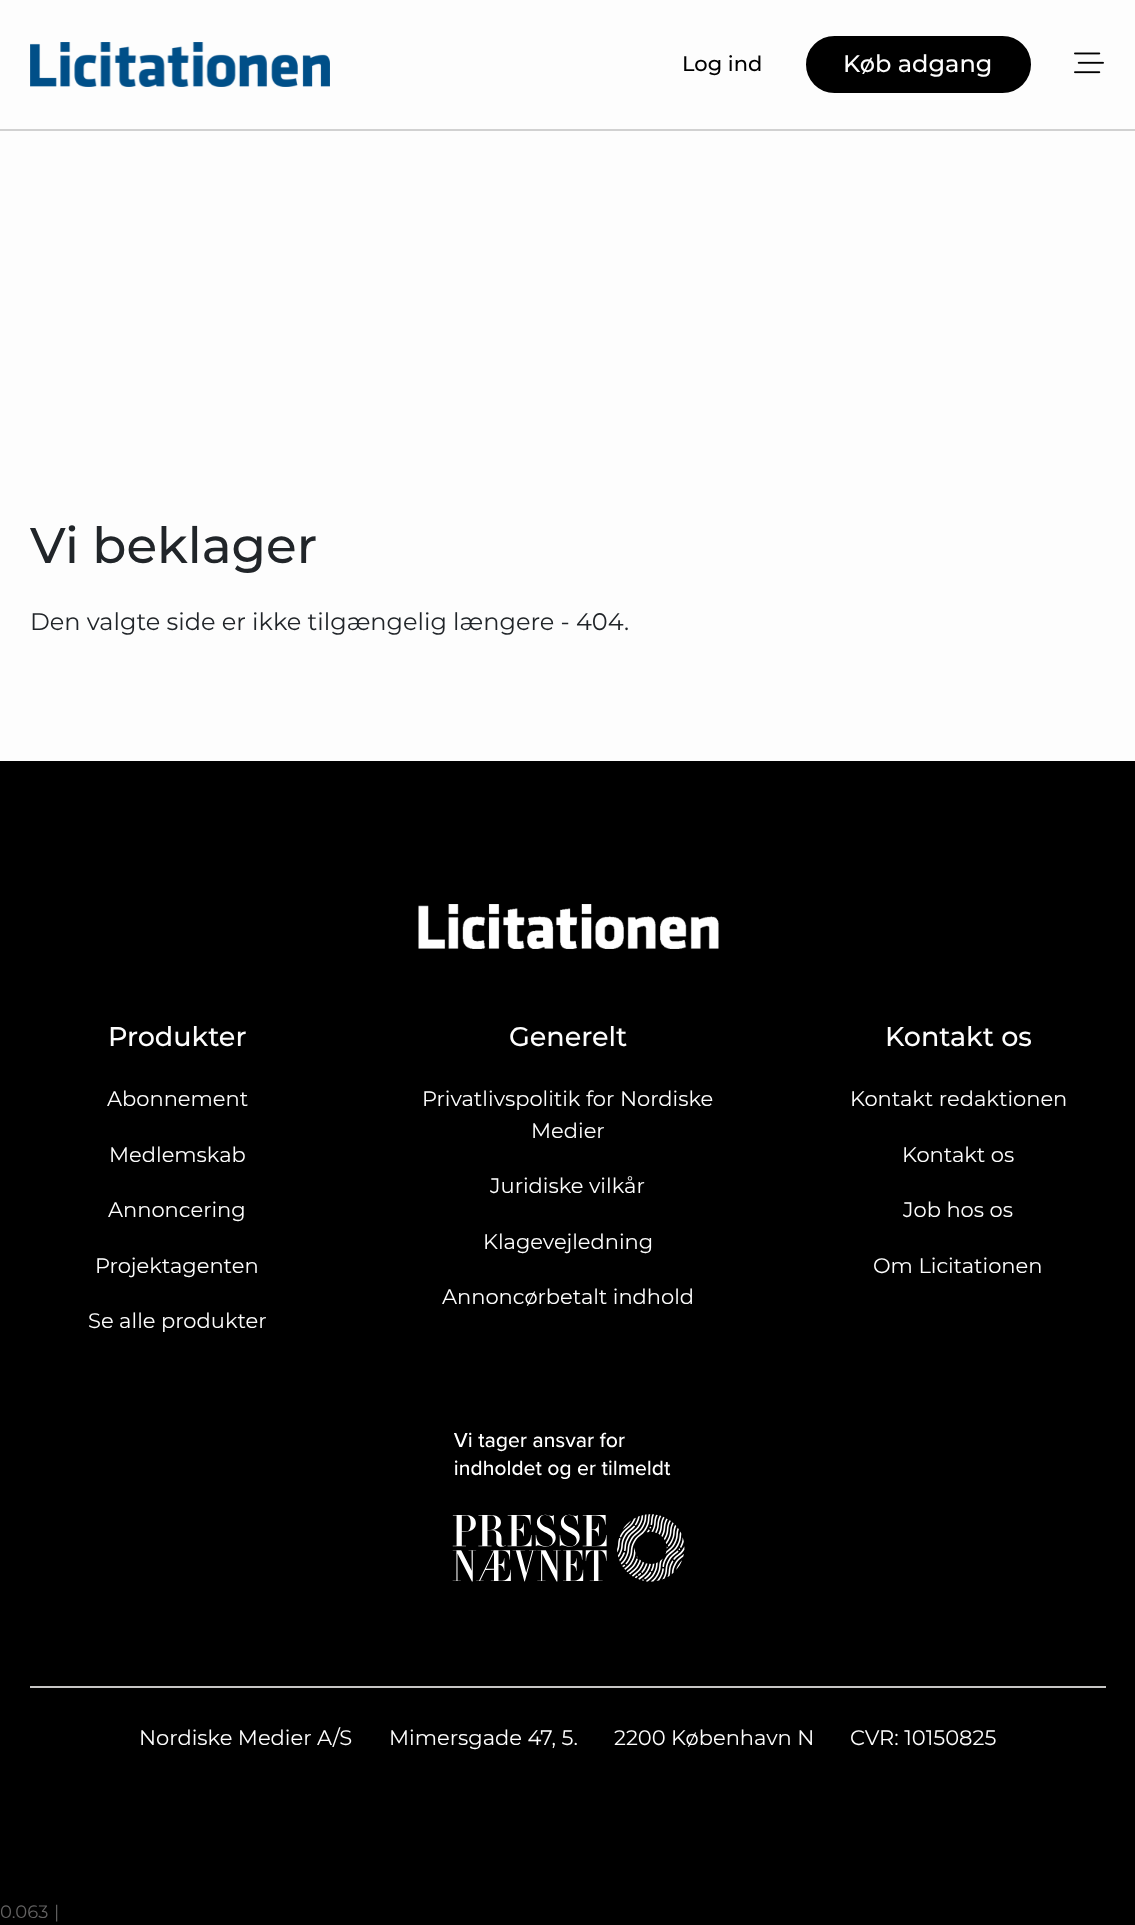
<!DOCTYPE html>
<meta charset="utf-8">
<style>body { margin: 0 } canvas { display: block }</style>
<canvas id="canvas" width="1135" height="1925"></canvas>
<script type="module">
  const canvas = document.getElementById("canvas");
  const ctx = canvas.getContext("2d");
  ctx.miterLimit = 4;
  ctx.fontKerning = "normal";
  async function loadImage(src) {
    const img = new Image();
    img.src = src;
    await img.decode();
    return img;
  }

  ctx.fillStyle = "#fdfdfd";
  ctx.fillRect(0, 0, 1135, 1925);
  ctx.fillStyle = "#d1d1d1";
  ctx.fillRect(0, 129, 1135, 2);
  ctx.drawImage(await loadImage("img1.png"), 30, 42, 300, 45);
  ctx.font = "500 21px Montserrat";
  ctx.fillStyle = "#000000";
  ctx.fillText("Log ind", 682, 71);
  ctx.beginPath();
  ctx.roundRect(807, 37, 223, 55, 27.5);
  ctx.fill();
  ctx.strokeStyle = "#000000";
  ctx.lineWidth = 2;
  ctx.stroke();
  ctx.font = "500 24px Montserrat";
  ctx.fillStyle = "#fdfdfd";
  ctx.fillText("Køb adgang", 843, 72);
  ctx.drawImage(await loadImage("img2.png"), 1074, 52, 30, 22);
  ctx.font = "500 50px Montserrat";
  ctx.fillStyle = "#212529";
  ctx.fillText("Vi beklager", 30, 563);
  ctx.font = "24px Montserrat";
  ctx.fillText("Den valgte side er ikke tilgængelig længere - 404.", 30, 630);
  ctx.fillStyle = "#000000";
  ctx.fillRect(0, 761, 1135, 1164);
  ctx.drawImage(await loadImage("img3.png"), 418, 904, 301, 45);
  ctx.font = "500 27px Montserrat";
  ctx.fillStyle = "#fdfdfd";
  ctx.fillText("Produkter", 108, 1046);
  ctx.font = "21px Montserrat";
  ctx.fillText("Abonnement", 107, 1106);
  ctx.fillText("Medlemskab", 109, 1162);
  ctx.fillText("Annoncering", 108, 1217);
  ctx.fillText("Projektagenten", 95, 1273);
  ctx.fillText("Se alle produkter", 88, 1328);
  ctx.font = "500 27px Montserrat";
  ctx.fillText("Generelt", 509, 1046);
  ctx.font = "21px Montserrat";
  ctx.fillText("Privatlivspolitik for Nordiske", 422, 1106);
  ctx.fillText("Medier", 531, 1138);
  ctx.fillText("Juridiske vilkår", 490, 1193);
  ctx.fillText("Klagevejledning", 483, 1249);
  ctx.fillText("Annoncørbetalt indhold", 442, 1304);
  ctx.font = "500 27px Montserrat";
  ctx.fillText("Kontakt os", 885, 1046);
  ctx.font = "21px Montserrat";
  ctx.fillText("Kontakt redaktionen", 850, 1106);
  ctx.fillText("Kontakt os", 902, 1162);
  ctx.fillText("Job hos os", 903, 1217);
  ctx.fillText("Om Licitationen", 873, 1273);
  ctx.drawImage(await loadImage("img4.png"), 452, 1432, 233, 150);
  ctx.fillStyle = "#c6c5c4";
  ctx.fillRect(30, 1686, 1076, 2);
  ctx.fillStyle = "#fdfdfd";
  ctx.fillText("Nordiske Medier A/S", 139, 1745);
  ctx.fillText("Mimersgade 47, 5.", 389, 1745);
  ctx.fillText("2200 København N", 614, 1745);
  ctx.fillText("CVR: 10150825", 850, 1745);
  ctx.font = "18px Montserrat";
  ctx.fillStyle = "#636262";
  ctx.fillText("0.063", 0, 1918);
  ctx.fillText("|", 54, 1918);
</script>
